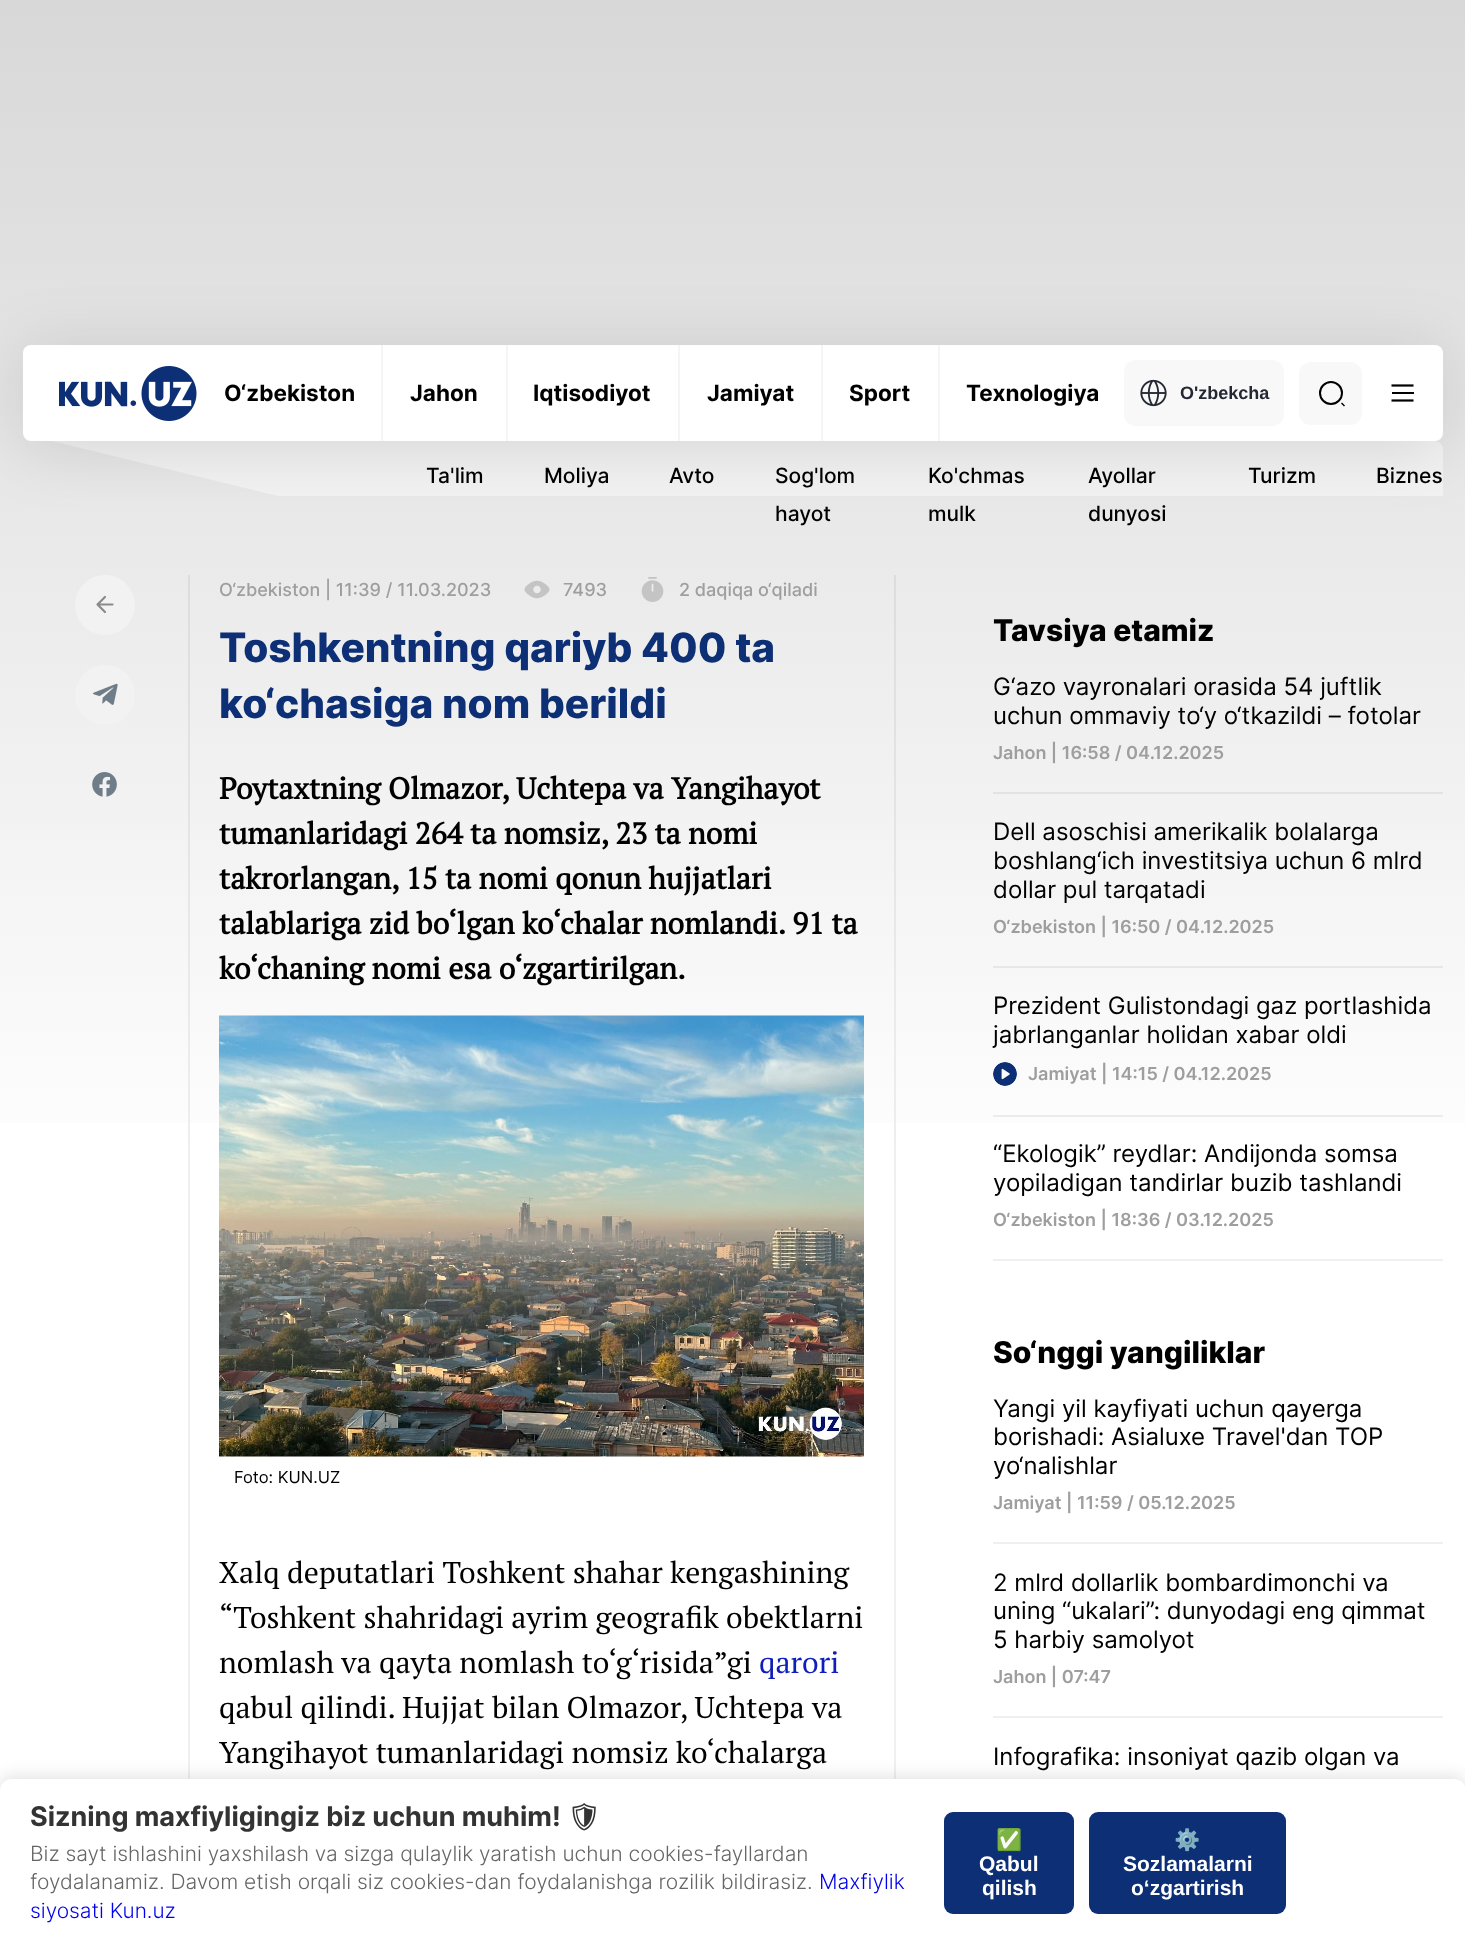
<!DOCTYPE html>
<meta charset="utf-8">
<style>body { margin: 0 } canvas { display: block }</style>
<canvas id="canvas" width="1465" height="1946"></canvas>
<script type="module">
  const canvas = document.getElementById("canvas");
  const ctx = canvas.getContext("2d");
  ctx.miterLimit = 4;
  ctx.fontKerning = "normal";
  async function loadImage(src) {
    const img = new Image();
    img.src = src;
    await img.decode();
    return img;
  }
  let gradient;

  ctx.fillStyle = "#ffffff";
  ctx.fillRect(0, 0, 1465, 1946);
  ctx.fillStyle = "#f0f0f0";
  ctx.fillRect(188, 1200, 2, 579);
  ctx.fillRect(894, 1200, 2, 579);
  gradient = ctx.createLinearGradient(733, 0, 733, 1200);
  gradient.addColorStop(0, "#d8d8d8");
  gradient.addColorStop(1, "#ffffff");
  ctx.fillStyle = gradient;
  ctx.fillRect(0, 0, 1465, 1123);
  gradient = ctx.createLinearGradient(733, 0, 733, 1200);
  gradient.addColorStop(0, "#cbcbcb");
  gradient.addColorStop(1, "#f0f0f0");
  ctx.fillStyle = gradient;
  ctx.fillRect(188, 575, 2, 625);
  ctx.fillRect(894, 575, 2, 625);
  ctx.fillStyle = "#f2f2f2";
  ctx.beginPath();
  ctx.moveTo(52, 441);
  ctx.lineTo(278, 496);
  ctx.lineTo(1443, 496);
  ctx.lineTo(1443, 449);
  ctx.bezierCurveTo(1443, 445, 1439, 441, 1435, 441);
  ctx.closePath();
  ctx.fill();
  ctx.fillStyle = "rgba(0, 0, 0, 0.12)";
  ctx.filter = "blur(33px)";
  ctx.beginPath();
  ctx.roundRect(23, 351, 1420, 96, 8);
  ctx.fill();
  ctx.filter = "none";
  ctx.fillStyle = "#ffffff";
  ctx.beginPath();
  ctx.roundRect(23, 345, 1420, 96, 8);
  ctx.fill();
  ctx.drawImage(await loadImage("img1.png"), 59, 366, 138, 55);
  ctx.fillStyle = "#f5f5f5";
  ctx.fillRect(381, 345, 2, 96);
  ctx.font = "bold 22.5px Inter";
  ctx.fillStyle = "#000000";
  ctx.fillText("O‘zbekiston", 224, 401);
  ctx.fillStyle = "#f5f5f5";
  ctx.fillRect(506, 345, 2, 96);
  ctx.fillStyle = "#000000";
  ctx.fillText("Jahon", 410, 401);
  ctx.fillStyle = "#f5f5f5";
  ctx.fillRect(678, 345, 2, 96);
  ctx.fillStyle = "#000000";
  ctx.fillText("Iqtisodiyot", 533, 401);
  ctx.fillStyle = "#f5f5f5";
  ctx.fillRect(821, 345, 2, 96);
  ctx.fillStyle = "#000000";
  ctx.fillText("Jamiyat", 707, 401);
  ctx.fillStyle = "#f5f5f5";
  ctx.fillRect(938, 345, 2, 96);
  ctx.fillStyle = "#000000";
  ctx.fillText("Sport", 849, 401);
  ctx.fillText("Texnologiya", 966, 401);
  ctx.fillStyle = "#f8f8f8";
  ctx.beginPath();
  ctx.roundRect(1124, 360, 160, 66, 12);
  ctx.fill();
  ctx.drawImage(await loadImage("img2.png"), 1140, 379, 27, 28);
  ctx.font = "bold 18px Liberation Sans";
  ctx.fillStyle = "#242833";
  ctx.fillText("O'zbekcha", 1180, 399);
  ctx.fillStyle = "#f8f8f8";
  ctx.beginPath();
  ctx.roundRect(1299, 362, 63, 63, 12);
  ctx.fill();
  ctx.beginPath();
  ctx.arc(1331, 393, 11, 0, Math.PI * 2);
  ctx.strokeStyle = "#000000";
  ctx.lineWidth = 2;
  ctx.stroke();
  ctx.fillStyle = "#000000";
  ctx.beginPath();
  ctx.moveTo(1342, 402.5);
  ctx.lineTo(1345, 405.5);
  ctx.lineTo(1344, 406.5);
  ctx.lineTo(1341, 403.5);
  ctx.closePath();
  ctx.fill();
  ctx.beginPath();
  ctx.moveTo(1391.5, 385.5);
  ctx.lineTo(1413.5, 385.5);
  ctx.lineWidth = 2.2;
  ctx.stroke();
  ctx.fillRect(1392, 392, 22, 2);
  ctx.beginPath();
  ctx.moveTo(1391.5, 400.5);
  ctx.lineTo(1413.5, 400.5);
  ctx.stroke();
  ctx.font = "500 21px Inter";
  ctx.fillText("Ta'lim", 426, 483);
  ctx.fillText("Moliya", 544, 483);
  ctx.fillText("Avto", 669, 483);
  ctx.fillText("Sog'lom", 775, 483);
  ctx.fillText("hayot", 775, 521);
  ctx.fillText("Ko'chmas", 928, 483);
  ctx.fillText("mulk", 928, 521);
  ctx.fillText("Ayollar", 1088, 483);
  ctx.fillText("dunyosi", 1088, 521);
  ctx.fillText("Turizm", 1248, 483);
  ctx.fillText("Biznes", 1376, 483);
  ctx.fillStyle = "#f2f2f2";
  ctx.beginPath();
  ctx.arc(105, 605, 30, 0, Math.PI * 2);
  ctx.fill();
  ctx.beginPath();
  ctx.moveTo(112.5, 604.5);
  ctx.lineTo(97.5, 604.5);
  ctx.moveTo(105, 612);
  ctx.lineTo(97.5, 604.5);
  ctx.lineTo(105, 597);
  ctx.strokeStyle = "#8a8a8a";
  ctx.lineCap = "round";
  ctx.lineJoin = "round";
  ctx.stroke();
  ctx.beginPath();
  ctx.arc(105, 695, 30, 0, Math.PI * 2);
  ctx.fill();
  ctx.drawImage(await loadImage("img3.png"), 93, 683, 25, 22);
  ctx.drawImage(await loadImage("img4.png"), 92, 772, 25, 25);
  ctx.font = "500 18px Inter";
  ctx.fillStyle = "#9e9e9e";
  ctx.fillText("O‘zbekiston | 11:39 / 11.03.2023", 219, 596);
  ctx.drawImage(await loadImage("img5.png"), 524, 580, 26, 19);
  ctx.fillText("7493", 563, 596);
  ctx.drawImage(await loadImage("img6.png"), 641, 577, 23, 25);
  ctx.fillText("2 daqiqa o‘qiladi", 679, 596);
  ctx.font = "800 40.5px Inter";
  ctx.fillStyle = "#0c2f75";
  ctx.fillText("Toshkentning qariyb 400 ta", 219, 662);
  ctx.fillText("ko‘chasiga nom berildi", 219, 718);
  ctx.font = "bold 30px PT Serif";
  ctx.fillStyle = "#000000";
  ctx.fillText("Poytaxtning Olmazor, Uchtepa va Yangihayot", 219, 799);
  ctx.fillText("tumanlaridagi 264 ta nomsiz, 23 ta nomi", 219, 844);
  ctx.fillText("takrorlangan, 15 ta nomi qonun hujjatlari", 219, 889);
  ctx.fillText("talablariga zid bo‘lgan ko‘chalar nomlandi. 91 ta", 219, 934);
  ctx.fillText("ko‘chaning nomi esa o‘zgartirilgan.", 219, 979);
  ctx.drawImage(await loadImage("img7.png"), 219, 1015, 645, 442);
  ctx.font = "16.5px Inter";
  ctx.fillText("Foto: KUN.UZ", 234, 1483);
  ctx.font = "30px PT Serif";
  ctx.fillText("Xalq deputatlari Toshkent shahar kengashining", 219, 1583);
  ctx.fillText("“Toshkent shahridagi ayrim geografik obektlarni", 219, 1628);
  ctx.fillText("nomlash va qayta nomlash to‘g‘risida”gi", 219, 1673);
  ctx.fillStyle = "#0d1ebb";
  ctx.fillText("qarori", 759, 1673);
  ctx.fillStyle = "#000000";
  ctx.fillText("qabul qilindi. Hujjat bilan Olmazor, Uchtepa va", 219, 1718);
  ctx.fillText("Yangihayot tumanlaridagi nomsiz ko‘chalarga", 219, 1763);
  ctx.font = "800 30px Inter";
  ctx.fillText("Tavsiya etamiz", 993, 641);
  ctx.fillStyle = "#e3e3e3";
  ctx.fillRect(993, 792, 450, 2);
  ctx.font = "24px Inter";
  ctx.fillStyle = "#000000";
  ctx.fillText("G‘azo vayronalari orasida 54 juftlik", 993, 695);
  ctx.fillText("uchun ommaviy to‘y o‘tkazildi – fotolar", 993, 724);
  ctx.font = "600 18px Inter";
  ctx.fillStyle = "#9e9e9e";
  ctx.fillText("Jahon | 16:58 / 04.12.2025", 993, 759);
  ctx.fillStyle = "#e7e7e7";
  ctx.fillRect(993, 966, 450, 2);
  ctx.font = "24px Inter";
  ctx.fillStyle = "#000000";
  ctx.fillText("Dell asoschisi amerikalik bolalarga", 993, 840);
  ctx.fillText("boshlang‘ich investitsiya uchun 6 mlrd", 993, 869);
  ctx.fillText("dollar pul tarqatadi", 993, 898);
  ctx.font = "600 18px Inter";
  ctx.fillStyle = "#9e9e9e";
  ctx.fillText("O‘zbekiston | 16:50 / 04.12.2025", 993, 933);
  ctx.fillStyle = "#ececec";
  ctx.fillRect(993, 1115, 450, 2);
  ctx.font = "24px Inter";
  ctx.fillStyle = "#000000";
  ctx.fillText("Prezident Gulistondagi gaz portlashida", 993, 1014);
  ctx.fillText("jabrlanganlar holidan xabar oldi", 993, 1043);
  ctx.drawImage(await loadImage("img8.png"), 993, 1062, 24, 24);
  ctx.font = "600 18px Inter";
  ctx.fillStyle = "#9e9e9e";
  ctx.fillText("Jamiyat | 14:15 / 04.12.2025", 1028, 1080);
  ctx.fillStyle = "#efefef";
  ctx.fillRect(993, 1259, 450, 2);
  ctx.font = "24px Inter";
  ctx.fillStyle = "#000000";
  ctx.fillText("“Ekologik” reydlar: Andijonda somsa", 993, 1162);
  ctx.fillText("yopiladigan tandirlar buzib tashlandi", 993, 1191);
  ctx.font = "600 18px Inter";
  ctx.fillStyle = "#9e9e9e";
  ctx.fillText("O‘zbekiston | 18:36 / 03.12.2025", 993, 1226);
  ctx.font = "800 30px Inter";
  ctx.fillStyle = "#000000";
  ctx.fillText("So‘nggi yangiliklar", 993, 1363);
  ctx.fillStyle = "#efefef";
  ctx.fillRect(993, 1542, 450, 2);
  ctx.font = "24px Inter";
  ctx.fillStyle = "#000000";
  ctx.fillText("Yangi yil kayfiyati uchun qayerga", 993, 1417);
  ctx.fillText("borishadi: Asialuxe Travel'dan TOP", 993, 1445);
  ctx.fillText("yo‘nalishlar", 993, 1474);
  ctx.font = "600 18px Inter";
  ctx.fillStyle = "#9e9e9e";
  ctx.fillText("Jamiyat | 11:59 / 05.12.2025", 993, 1509);
  ctx.fillStyle = "#efefef";
  ctx.fillRect(993, 1716, 450, 2);
  ctx.font = "24px Inter";
  ctx.fillStyle = "#000000";
  ctx.fillText("2 mlrd dollarlik bombardimonchi va", 993, 1591);
  ctx.fillText("uning “ukalari”: dunyodagi eng qimmat", 993, 1619);
  ctx.fillText("5 harbiy samolyot", 993, 1648);
  ctx.font = "600 18px Inter";
  ctx.fillStyle = "#9e9e9e";
  ctx.fillText("Jahon | 07:47", 993, 1683);
  ctx.font = "24px Inter";
  ctx.fillStyle = "#000000";
  ctx.fillText("Infografika: insoniyat qazib olgan va", 993, 1765);
  ctx.fillStyle = "rgba(0, 0, 0, 0.1)";
  ctx.filter = "blur(7.5px)";
  ctx.beginPath();
  ctx.roundRect(0, 1775, 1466, 168, 12);
  ctx.fill();
  ctx.filter = "none";
  ctx.fillStyle = "#ffffff";
  ctx.beginPath();
  ctx.moveTo(12, 1779);
  ctx.lineTo(1454, 1779);
  ctx.bezierCurveTo(1460.5, 1779, 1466, 1784.5, 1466, 1791);
  ctx.lineTo(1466, 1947);
  ctx.lineTo(0, 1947);
  ctx.lineTo(0, 1791);
  ctx.bezierCurveTo(0, 1784.5, 5.5, 1779, 12, 1779);
  ctx.closePath();
  ctx.fill();
  ctx.font = "bold 27px Inter";
  ctx.fillStyle = "#333333";
  ctx.fillText("Sizning maxfiyligingiz biz uchun muhim!", 30, 1826);
  ctx.font = "bold 27px Noto Emoji";
  ctx.fillText("🛡", 567, 1826);
  ctx.font = "300 21px Inter";
  ctx.fillStyle = "#666666";
  ctx.fillText("Biz sayt ishlashini yaxshilash va sizga qulaylik yaratish uchun cookies-fayllardan", 30, 1861);
  ctx.fillText("foydalanamiz. Davom etish orqali siz cookies-dan foydalanishga rozilik bildirasiz.", 30, 1889);
  ctx.fillStyle = "#0000ee";
  ctx.fillText("Maxfiylik", 819, 1889);
  ctx.fillText("siyosati Kun.uz", 30, 1918);
  ctx.fillStyle = "#0c2f75";
  ctx.beginPath();
  ctx.roundRect(944, 1812, 130, 102, 9);
  ctx.fill();
  ctx.font = "bold 21px Noto Color Emoji";
  ctx.fillStyle = "#ffffff";
  ctx.fillText("✅", 996, 1847);
  ctx.font = "bold 21px Liberation Sans";
  ctx.fillText("Qabul", 979, 1871);
  ctx.fillText("qilish", 982, 1895);
  ctx.fillStyle = "#0c2f75";
  ctx.beginPath();
  ctx.roundRect(1089, 1812, 197, 102, 9);
  ctx.fill();
  ctx.font = "bold 21px Noto Color Emoji";
  ctx.fillStyle = "#ffffff";
  ctx.fillText("⚙️", 1174, 1847);
  ctx.font = "bold 21px Liberation Sans";
  ctx.fillText("Sozlamalarni", 1123, 1871);
  ctx.fillText("o‘zgartirish", 1131, 1895);
</script>
